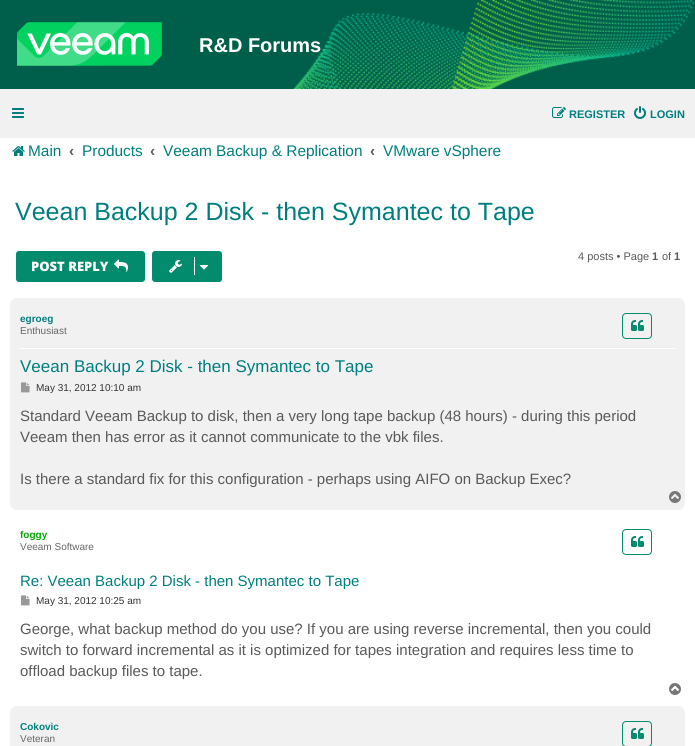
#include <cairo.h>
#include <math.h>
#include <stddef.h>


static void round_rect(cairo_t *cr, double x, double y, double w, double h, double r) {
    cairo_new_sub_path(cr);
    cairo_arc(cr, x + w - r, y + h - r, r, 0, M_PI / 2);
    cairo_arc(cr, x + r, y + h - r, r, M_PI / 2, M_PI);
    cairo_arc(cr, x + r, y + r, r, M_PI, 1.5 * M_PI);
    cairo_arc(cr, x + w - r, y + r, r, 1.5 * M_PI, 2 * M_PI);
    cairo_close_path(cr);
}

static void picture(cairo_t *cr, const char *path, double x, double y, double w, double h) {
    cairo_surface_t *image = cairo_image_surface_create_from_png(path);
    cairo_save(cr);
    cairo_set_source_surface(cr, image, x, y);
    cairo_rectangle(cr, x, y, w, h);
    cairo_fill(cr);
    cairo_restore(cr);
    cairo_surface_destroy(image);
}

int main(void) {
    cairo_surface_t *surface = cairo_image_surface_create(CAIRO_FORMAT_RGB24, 695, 746);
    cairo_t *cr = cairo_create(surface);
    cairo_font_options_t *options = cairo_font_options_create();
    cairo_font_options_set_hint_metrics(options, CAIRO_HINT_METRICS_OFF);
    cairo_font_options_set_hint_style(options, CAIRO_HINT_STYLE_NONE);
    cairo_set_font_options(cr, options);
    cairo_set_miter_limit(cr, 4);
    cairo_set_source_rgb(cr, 1, 1, 1);
    cairo_paint(cr);
    cairo_set_source_rgb(cr, 0, 0.373, 0.294);
    cairo_rectangle(cr, 0, 0, 695, 89);
    cairo_fill(cr);
    picture(cr, "img1.png", 293, 0, 402, 89);
    picture(cr, "img2.png", 17, 22, 145, 44);
    cairo_select_font_face(cr, "Liberation Sans", CAIRO_FONT_SLANT_NORMAL, CAIRO_FONT_WEIGHT_BOLD);
    cairo_set_font_size(cr, 20);
    cairo_set_source_rgb(cr, 1, 1, 1);
    cairo_move_to(cr, 199, 52);
    cairo_show_text(cr, "R&D Forums");
    cairo_set_source_rgb(cr, 0.945, 0.945, 0.945);
    cairo_rectangle(cr, 0, 89, 695, 49);
    cairo_fill(cr);
    picture(cr, "img3.png", 12, 108, 12, 10);
    picture(cr, "img4.png", 552, 107, 14, 11);
    cairo_set_font_size(cr, 11);
    cairo_set_source_rgb(cr, 0, 0.494, 0.494);
    cairo_move_to(cr, 569, 118);
    cairo_show_text(cr, "REGISTER");
    picture(cr, "img5.png", 634, 106, 12, 13);
    cairo_move_to(cr, 650, 118);
    cairo_show_text(cr, "LOGIN");
    picture(cr, "img6.png", 12, 146, 13, 10);
    cairo_select_font_face(cr, "Liberation Sans", CAIRO_FONT_SLANT_NORMAL, CAIRO_FONT_WEIGHT_NORMAL);
    cairo_set_font_size(cr, 15.4);
    cairo_move_to(cr, 28, 156);
    cairo_show_text(cr, "Main");
    cairo_select_font_face(cr, "Liberation Sans", CAIRO_FONT_SLANT_NORMAL, CAIRO_FONT_WEIGHT_BOLD);
    cairo_set_source_rgb(cr, 0.345, 0.349, 0.357);
    cairo_move_to(cr, 69, 156);
    cairo_show_text(cr, "‹");
    cairo_select_font_face(cr, "Liberation Sans", CAIRO_FONT_SLANT_NORMAL, CAIRO_FONT_WEIGHT_NORMAL);
    cairo_set_source_rgb(cr, 0, 0.494, 0.494);
    cairo_move_to(cr, 82, 156);
    cairo_show_text(cr, "Products");
    cairo_select_font_face(cr, "Liberation Sans", CAIRO_FONT_SLANT_NORMAL, CAIRO_FONT_WEIGHT_BOLD);
    cairo_set_source_rgb(cr, 0.345, 0.349, 0.357);
    cairo_move_to(cr, 150, 156);
    cairo_show_text(cr, "‹");
    cairo_select_font_face(cr, "Liberation Sans", CAIRO_FONT_SLANT_NORMAL, CAIRO_FONT_WEIGHT_NORMAL);
    cairo_set_source_rgb(cr, 0, 0.494, 0.494);
    cairo_move_to(cr, 163, 156);
    cairo_show_text(cr, "Veeam Backup & Replication");
    cairo_select_font_face(cr, "Liberation Sans", CAIRO_FONT_SLANT_NORMAL, CAIRO_FONT_WEIGHT_BOLD);
    cairo_set_source_rgb(cr, 0.345, 0.349, 0.357);
    cairo_move_to(cr, 370, 156);
    cairo_show_text(cr, "‹");
    cairo_select_font_face(cr, "Liberation Sans", CAIRO_FONT_SLANT_NORMAL, CAIRO_FONT_WEIGHT_NORMAL);
    cairo_set_source_rgb(cr, 0, 0.494, 0.494);
    cairo_move_to(cr, 383, 156);
    cairo_show_text(cr, "VMware vSphere");
    cairo_set_font_size(cr, 25);
    cairo_move_to(cr, 15, 220);
    cairo_show_text(cr, "Veean Backup 2 Disk - then Symantec to Tape");
    cairo_set_source_rgb(cr, 0.008, 0.545, 0.427);
    round_rect(cr, 151.5, 250.5, 71, 32, 3.5);
    cairo_fill_preserve(cr);
    cairo_set_source_rgb(cr, 1, 1, 1);
    cairo_set_line_width(cr, 1);
    cairo_stroke(cr);
    picture(cr, "img7.png", 169, 260, 13, 13);
    cairo_rectangle(cr, 194, 257, 1, 18);
    cairo_fill(cr);
    picture(cr, "img8.png", 200, 265, 8, 5);
    cairo_set_font_size(cr, 11);
    cairo_set_source_rgb(cr, 0.345, 0.349, 0.357);
    cairo_move_to(cr, 578, 260);
    cairo_show_text(cr, "4 posts • Page");
    cairo_select_font_face(cr, "Liberation Sans", CAIRO_FONT_SLANT_NORMAL, CAIRO_FONT_WEIGHT_BOLD);
    cairo_move_to(cr, 652, 260);
    cairo_show_text(cr, "1");
    cairo_select_font_face(cr, "Liberation Sans", CAIRO_FONT_SLANT_NORMAL, CAIRO_FONT_WEIGHT_NORMAL);
    cairo_move_to(cr, 662, 260);
    cairo_show_text(cr, "of");
    cairo_select_font_face(cr, "Liberation Sans", CAIRO_FONT_SLANT_NORMAL, CAIRO_FONT_WEIGHT_BOLD);
    cairo_move_to(cr, 674, 260);
    cairo_show_text(cr, "1");
    cairo_set_source_rgb(cr, 0.008, 0.545, 0.427);
    round_rect(cr, 15.5, 250.5, 130, 32, 3.5);
    cairo_fill_preserve(cr);
    cairo_set_source_rgb(cr, 1, 1, 1);
    cairo_stroke(cr);
    cairo_select_font_face(cr, "Open Sans ExtraBold", CAIRO_FONT_SLANT_NORMAL, CAIRO_FONT_WEIGHT_NORMAL);
    cairo_set_font_size(cr, 13);
    cairo_move_to(cr, 31, 271);
    cairo_show_text(cr, "POST REPLY");
    picture(cr, "img9.png", 114, 259, 14, 13);
    cairo_set_source_rgb(cr, 0.945, 0.945, 0.945);
    round_rect(cr, 10, 298, 675, 212, 7);
    cairo_fill(cr);
    cairo_set_source_rgb(cr, 1, 1, 1);
    cairo_rectangle(cr, 20, 348, 655, 1);
    cairo_fill(cr);
    cairo_select_font_face(cr, "Liberation Sans", CAIRO_FONT_SLANT_NORMAL, CAIRO_FONT_WEIGHT_BOLD);
    cairo_set_font_size(cr, 10);
    cairo_set_source_rgb(cr, 0, 0.494, 0.494);
    cairo_move_to(cr, 20, 322);
    cairo_show_text(cr, "egroeg");
    cairo_select_font_face(cr, "Liberation Sans", CAIRO_FONT_SLANT_NORMAL, CAIRO_FONT_WEIGHT_NORMAL);
    cairo_set_source_rgb(cr, 0.4, 0.4, 0.4);
    cairo_move_to(cr, 20, 334);
    cairo_show_text(cr, "Enthusiast");
    round_rect(cr, 622.5, 313.5, 29, 25, 3.5);
    cairo_set_source_rgb(cr, 0.008, 0.545, 0.427);
    cairo_stroke(cr);
    picture(cr, "img10.png", 631, 320, 13, 11);
    cairo_set_font_size(cr, 17);
    cairo_set_source_rgb(cr, 0, 0.494, 0.494);
    cairo_move_to(cr, 20, 372);
    cairo_show_text(cr, "Veean Backup 2 Disk - then Symantec to Tape");
    picture(cr, "img11.png", 21, 382, 9, 11);
    cairo_set_font_size(cr, 10);
    cairo_set_source_rgb(cr, 0.2, 0.2, 0.2);
    cairo_move_to(cr, 36, 391);
    cairo_show_text(cr, "May 31, 2012 10:10 am");
    cairo_set_font_size(cr, 15);
    cairo_set_source_rgb(cr, 0.345, 0.349, 0.357);
    cairo_move_to(cr, 20, 421);
    cairo_show_text(cr, "Standard Veeam Backup to disk, then a very long tape backup (48 hours) - during this period");
    cairo_move_to(cr, 20, 442);
    cairo_show_text(cr, "Veeam then has error as it cannot communicate to the vbk files.");
    cairo_move_to(cr, 20, 484);
    cairo_show_text(cr, "Is there a standard fix for this configuration - perhaps using AIFO on Backup Exec?");
    picture(cr, "img12.png", 669, 491, 12, 12);
    cairo_select_font_face(cr, "Liberation Sans", CAIRO_FONT_SLANT_NORMAL, CAIRO_FONT_WEIGHT_BOLD);
    cairo_set_font_size(cr, 10);
    cairo_set_source_rgb(cr, 0, 0.667, 0);
    cairo_move_to(cr, 20, 538);
    cairo_show_text(cr, "foggy");
    cairo_select_font_face(cr, "Liberation Sans", CAIRO_FONT_SLANT_NORMAL, CAIRO_FONT_WEIGHT_NORMAL);
    cairo_set_source_rgb(cr, 0.4, 0.4, 0.4);
    cairo_move_to(cr, 20, 550);
    cairo_show_text(cr, "Veeam Software");
    round_rect(cr, 622.5, 529.5, 29, 25, 3.5);
    cairo_set_source_rgb(cr, 0.008, 0.545, 0.427);
    cairo_stroke(cr);
    picture(cr, "img13.png", 631, 536, 13, 11);
    cairo_set_font_size(cr, 15);
    cairo_set_source_rgb(cr, 0, 0.494, 0.494);
    cairo_move_to(cr, 20, 586);
    cairo_show_text(cr, "Re: Veean Backup 2 Disk - then Symantec to Tape");
    picture(cr, "img14.png", 21, 595, 9, 11);
    cairo_set_font_size(cr, 10);
    cairo_set_source_rgb(cr, 0.2, 0.2, 0.2);
    cairo_move_to(cr, 36, 604);
    cairo_show_text(cr, "May 31, 2012 10:25 am");
    cairo_set_font_size(cr, 15);
    cairo_set_source_rgb(cr, 0.345, 0.349, 0.357);
    cairo_move_to(cr, 20, 634);
    cairo_show_text(cr, "George, what backup method do you use? If you are using reverse incremental, then you could");
    cairo_move_to(cr, 20, 655);
    cairo_show_text(cr, "switch to forward incremental as it is optimized for tapes integration and requires less time to");
    cairo_move_to(cr, 20, 676);
    cairo_show_text(cr, "offload backup files to tape.");
    picture(cr, "img15.png", 669, 683, 12, 12);
    cairo_set_source_rgb(cr, 0.945, 0.945, 0.945);
    round_rect(cr, 10, 706, 675, 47, 7);
    cairo_fill(cr);
    cairo_select_font_face(cr, "Liberation Sans", CAIRO_FONT_SLANT_NORMAL, CAIRO_FONT_WEIGHT_BOLD);
    cairo_set_font_size(cr, 10);
    cairo_set_source_rgb(cr, 0, 0.494, 0.494);
    cairo_move_to(cr, 20, 730);
    cairo_show_text(cr, "Cokovic");
    cairo_select_font_face(cr, "Liberation Sans", CAIRO_FONT_SLANT_NORMAL, CAIRO_FONT_WEIGHT_NORMAL);
    cairo_set_source_rgb(cr, 0.4, 0.4, 0.4);
    cairo_move_to(cr, 20, 742);
    cairo_show_text(cr, "Veteran");
    round_rect(cr, 622.5, 721.5, 29, 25, 3.5);
    cairo_set_source_rgb(cr, 0.008, 0.545, 0.427);
    cairo_stroke(cr);
    picture(cr, "img10.png", 631, 728, 13, 11);
    cairo_surface_write_to_png(surface, "page.png");
    cairo_font_options_destroy(options);
    cairo_destroy(cr);
    cairo_surface_destroy(surface);
    return 0;
}
